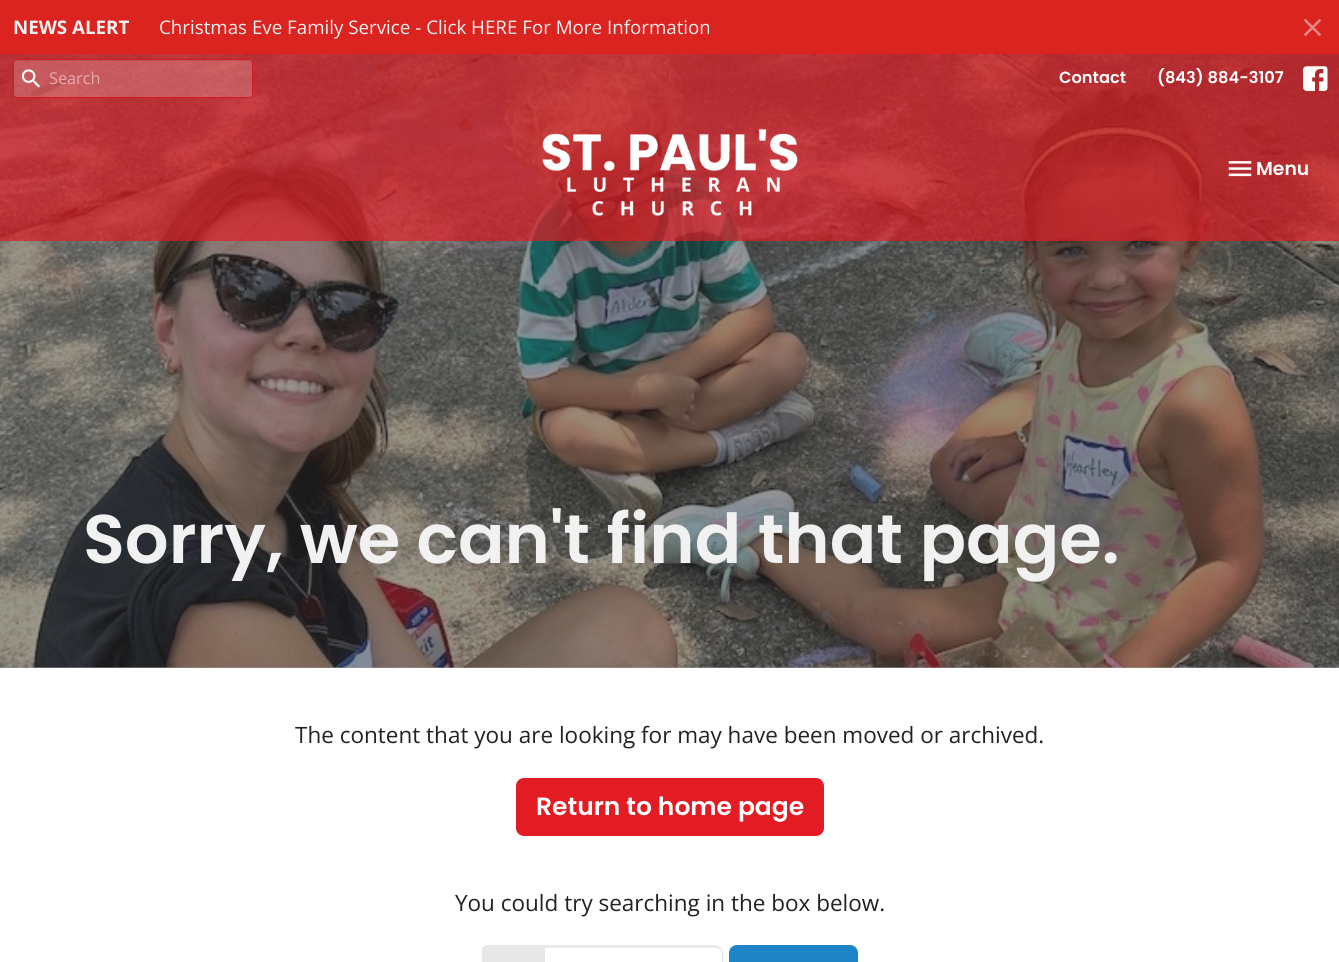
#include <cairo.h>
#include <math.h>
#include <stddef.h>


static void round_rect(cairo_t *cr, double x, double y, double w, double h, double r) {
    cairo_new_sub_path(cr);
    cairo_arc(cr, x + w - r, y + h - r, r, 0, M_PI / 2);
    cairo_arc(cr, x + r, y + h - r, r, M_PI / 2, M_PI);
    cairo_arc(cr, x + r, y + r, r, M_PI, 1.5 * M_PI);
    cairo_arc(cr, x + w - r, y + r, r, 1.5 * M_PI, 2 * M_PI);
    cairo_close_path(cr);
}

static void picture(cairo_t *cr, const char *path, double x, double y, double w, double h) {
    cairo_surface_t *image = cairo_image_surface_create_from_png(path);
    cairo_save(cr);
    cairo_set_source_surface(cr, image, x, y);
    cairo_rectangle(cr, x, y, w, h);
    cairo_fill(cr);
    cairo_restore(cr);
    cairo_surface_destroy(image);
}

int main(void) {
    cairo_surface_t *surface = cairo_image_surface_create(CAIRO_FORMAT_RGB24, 1339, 962);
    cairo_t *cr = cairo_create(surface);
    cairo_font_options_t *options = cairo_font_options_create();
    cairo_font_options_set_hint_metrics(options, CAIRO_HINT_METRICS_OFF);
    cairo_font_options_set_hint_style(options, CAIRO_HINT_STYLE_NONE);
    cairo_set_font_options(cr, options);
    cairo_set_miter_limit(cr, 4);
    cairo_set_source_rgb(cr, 1, 1, 1);
    cairo_paint(cr);
    cairo_set_source_rgb(cr, 0.6, 0.6, 0.6);
    cairo_rectangle(cr, 0, 667, 1339, 1);
    cairo_fill(cr);
    cairo_set_source_rgb(cr, 0.859, 0.137, 0.122);
    cairo_rectangle(cr, 0, 0, 1339, 54);
    cairo_fill(cr);
    cairo_select_font_face(cr, "Open Sans", CAIRO_FONT_SLANT_NORMAL, CAIRO_FONT_WEIGHT_BOLD);
    cairo_set_font_size(cr, 18.75);
    cairo_set_source_rgb(cr, 0.945, 0.945, 0.945);
    cairo_move_to(cr, 13, 34);
    cairo_show_text(cr, "NEWS ALERT");
    cairo_select_font_face(cr, "Open Sans", CAIRO_FONT_SLANT_NORMAL, CAIRO_FONT_WEIGHT_NORMAL);
    cairo_move_to(cr, 159, 34);
    cairo_show_text(cr, "Christmas Eve Family Service - Click HERE For More Information");
    picture(cr, "img1.png", 1303, 18, 19, 19);
    picture(cr, "img6.png", 0, 54, 1339, 614);
    cairo_set_source_rgba(cr, 0.89, 0.106, 0.137, 0.68);
    cairo_rectangle(cr, 0, 53, 1339, 51);
    cairo_fill(cr);
    cairo_set_source_rgba(cr, 1, 1, 1, 0.2);
    round_rect(cr, 13, 59, 240, 39, 4);
    cairo_fill(cr);
    cairo_set_source_rgba(cr, 0, 0, 0, 0.07);
    cairo_new_path(cr);
    cairo_move_to(cr, 16, 61);
    cairo_line_to(cr, 249, 61);
    cairo_curve_to(cr, 250, 61, 251, 62, 251, 64);
    cairo_curve_to(cr, 251, 62, 251, 60, 248, 60);
    cairo_line_to(cr, 16, 60);
    cairo_curve_to(cr, 14, 60, 14, 62, 14, 64);
    cairo_curve_to(cr, 14, 62, 15, 61, 16, 61);
    cairo_close_path(cr);
    cairo_fill(cr);
    round_rect(cr, 13.5, 59.5, 239, 38, 3.5);
    cairo_set_source_rgb(cr, 0.835, 0.098, 0.129);
    cairo_set_line_width(cr, 1);
    cairo_stroke(cr);
    picture(cr, "img2.png", 21, 69, 19, 19);
    cairo_set_font_size(cr, 16.25);
    cairo_set_source_rgb(cr, 0.89, 0.678, 0.682);
    cairo_move_to(cr, 49, 84);
    cairo_show_text(cr, "Search");
    cairo_select_font_face(cr, "Poppins SemiBold", CAIRO_FONT_SLANT_NORMAL, CAIRO_FONT_WEIGHT_NORMAL);
    cairo_set_source_rgb(cr, 1, 1, 1);
    cairo_move_to(cr, 1059, 83);
    cairo_show_text(cr, "Contact");
    cairo_move_to(cr, 1157, 83);
    cairo_show_text(cr, "(843) 884-3107");
    picture(cr, "img3.png", 1303, 66, 25, 25);
    cairo_set_source_rgba(cr, 0.89, 0.106, 0.137, 0.68);
    cairo_rectangle(cr, 0, 104, 1339, 137);
    cairo_fill(cr);
    picture(cr, "img4.png", 542, 128, 256, 88);
    picture(cr, "img5.png", 1228, 161, 24, 16);
    cairo_set_font_size(cr, 18.75);
    cairo_set_source_rgb(cr, 1, 1, 1);
    cairo_move_to(cr, 1256, 175);
    cairo_show_text(cr, "Menu");
    cairo_set_font_size(cr, 68.75);
    cairo_set_source_rgb(cr, 0.945, 0.945, 0.945);
    cairo_move_to(cr, 83, 563);
    cairo_show_text(cr, "Sorry, we can't find that page.");
    cairo_select_font_face(cr, "Open Sans", CAIRO_FONT_SLANT_NORMAL, CAIRO_FONT_WEIGHT_NORMAL);
    cairo_set_font_size(cr, 22.5);
    cairo_set_source_rgb(cr, 0.133, 0.133, 0.133);
    cairo_move_to(cr, 295, 743);
    cairo_show_text(cr, "The content that you are looking for may have been moved or archived.");
    cairo_set_source_rgb(cr, 0.89, 0.106, 0.137);
    round_rect(cr, 516, 778, 308, 58, 8);
    cairo_fill(cr);
    cairo_select_font_face(cr, "Poppins SemiBold", CAIRO_FONT_SLANT_NORMAL, CAIRO_FONT_WEIGHT_NORMAL);
    cairo_set_font_size(cr, 25);
    cairo_set_source_rgb(cr, 1, 1, 1);
    cairo_move_to(cr, 536, 815);
    cairo_show_text(cr, "Return to home page");
    cairo_select_font_face(cr, "Open Sans", CAIRO_FONT_SLANT_NORMAL, CAIRO_FONT_WEIGHT_NORMAL);
    cairo_set_font_size(cr, 22.5);
    cairo_set_source_rgb(cr, 0.133, 0.133, 0.133);
    cairo_move_to(cr, 455, 911);
    cairo_show_text(cr, "You could try searching in the box below.");
    cairo_set_source_rgb(cr, 0.91, 0.91, 0.91);
    cairo_new_path(cr);
    cairo_move_to(cr, 488, 945);
    cairo_line_to(cr, 544, 945);
    cairo_line_to(cr, 544, 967);
    cairo_line_to(cr, 488, 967);
    cairo_curve_to(cr, 485, 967, 483, 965, 483, 962);
    cairo_line_to(cr, 483, 950);
    cairo_curve_to(cr, 483, 947, 485, 945, 488, 945);
    cairo_close_path(cr);
    cairo_fill(cr);
    cairo_set_source_rgb(cr, 0.902, 0.902, 0.902);
    cairo_set_fill_rule(cr, CAIRO_FILL_RULE_EVEN_ODD);
    cairo_new_path(cr);
    cairo_move_to(cr, 488, 945);
    cairo_line_to(cr, 544, 945);
    cairo_line_to(cr, 544, 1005);
    cairo_line_to(cr, 488, 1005);
    cairo_curve_to(cr, 485, 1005, 482, 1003, 482, 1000);
    cairo_line_to(cr, 482, 950);
    cairo_curve_to(cr, 482, 947, 485, 945, 488, 945);
    cairo_close_path(cr);
    cairo_move_to(cr, 488, 946);
    cairo_line_to(cr, 544, 946);
    cairo_line_to(cr, 544, 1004);
    cairo_line_to(cr, 488, 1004);
    cairo_curve_to(cr, 485, 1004, 484, 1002, 484, 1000);
    cairo_line_to(cr, 484, 950);
    cairo_curve_to(cr, 484, 948, 485, 946, 488, 946);
    cairo_close_path(cr);
    cairo_fill(cr);
    cairo_set_source_rgb(cr, 0.925, 0.925, 0.925);
    cairo_set_fill_rule(cr, CAIRO_FILL_RULE_WINDING);
    cairo_new_path(cr);
    cairo_move_to(cr, 545, 948);
    cairo_line_to(cr, 715, 948);
    cairo_curve_to(cr, 718, 948, 721, 950, 721, 954);
    cairo_line_to(cr, 721, 952);
    cairo_curve_to(cr, 721, 949, 718, 946, 715, 946);
    cairo_line_to(cr, 545, 946);
    cairo_close_path(cr);
    cairo_fill(cr);
    cairo_new_path(cr);
    cairo_move_to(cr, 544.5, 945.5);
    cairo_line_to(cr, 715, 945.5);
    cairo_curve_to(cr, 719, 945.5, 722.5, 949, 722.5, 953);
    cairo_line_to(cr, 722.5, 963);
    cairo_curve_to(cr, 722.5, 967, 719, 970.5, 715, 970.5);
    cairo_line_to(cr, 544.5, 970.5);
    cairo_close_path(cr);
    cairo_set_source_rgb(cr, 0.902, 0.902, 0.902);
    cairo_stroke(cr);
    cairo_set_source_rgb(cr, 0.122, 0.522, 0.776);
    round_rect(cr, 729, 945, 129, 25, 8);
    cairo_fill(cr);
    cairo_surface_write_to_png(surface, "page.png");
    cairo_font_options_destroy(options);
    cairo_destroy(cr);
    cairo_surface_destroy(surface);
    return 0;
}
